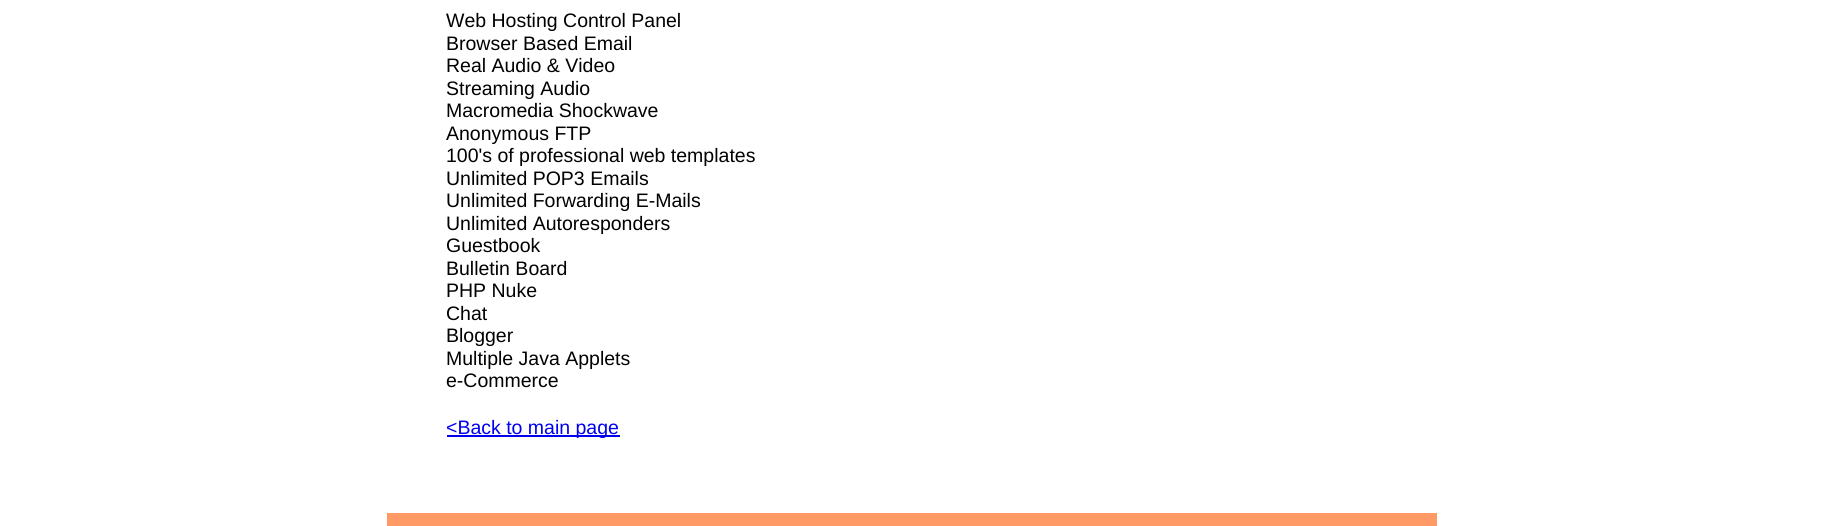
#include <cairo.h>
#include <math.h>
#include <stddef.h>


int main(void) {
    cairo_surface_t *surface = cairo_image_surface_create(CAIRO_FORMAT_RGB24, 1822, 526);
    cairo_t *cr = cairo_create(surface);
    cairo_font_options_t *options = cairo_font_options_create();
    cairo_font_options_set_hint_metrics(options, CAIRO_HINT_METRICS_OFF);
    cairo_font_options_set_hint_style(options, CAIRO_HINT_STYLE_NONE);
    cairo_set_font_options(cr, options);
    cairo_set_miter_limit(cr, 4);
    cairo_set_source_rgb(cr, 1, 1, 1);
    cairo_paint(cr);
    cairo_select_font_face(cr, "Liberation Sans", CAIRO_FONT_SLANT_NORMAL, CAIRO_FONT_WEIGHT_NORMAL);
    cairo_set_font_size(cr, 19.5);
    cairo_set_source_rgb(cr, 0, 0, 0);
    cairo_move_to(cr, 446, 27);
    cairo_show_text(cr, "Web Hosting Control Panel");
    cairo_move_to(cr, 446, 50);
    cairo_show_text(cr, "Browser Based Email");
    cairo_move_to(cr, 446, 72);
    cairo_show_text(cr, "Real Audio & Video");
    cairo_move_to(cr, 446, 95);
    cairo_show_text(cr, "Streaming Audio");
    cairo_move_to(cr, 446, 117);
    cairo_show_text(cr, "Macromedia Shockwave");
    cairo_move_to(cr, 446, 140);
    cairo_show_text(cr, "Anonymous FTP");
    cairo_move_to(cr, 446, 162);
    cairo_show_text(cr, "100's of professional web templates");
    cairo_move_to(cr, 446, 185);
    cairo_show_text(cr, "Unlimited POP3 Emails");
    cairo_move_to(cr, 446, 207);
    cairo_show_text(cr, "Unlimited Forwarding E-Mails");
    cairo_move_to(cr, 446, 230);
    cairo_show_text(cr, "Unlimited Autoresponders");
    cairo_move_to(cr, 446, 252);
    cairo_show_text(cr, "Guestbook");
    cairo_move_to(cr, 446, 275);
    cairo_show_text(cr, "Bulletin Board");
    cairo_move_to(cr, 446, 297);
    cairo_show_text(cr, "PHP Nuke");
    cairo_move_to(cr, 446, 320);
    cairo_show_text(cr, "Chat");
    cairo_move_to(cr, 446, 342);
    cairo_show_text(cr, "Blogger");
    cairo_move_to(cr, 446, 365);
    cairo_show_text(cr, "Multiple Java Applets");
    cairo_move_to(cr, 446, 387);
    cairo_show_text(cr, "e-Commerce");
    cairo_set_source_rgb(cr, 0, 0, 0.933);
    cairo_rectangle(cr, 447, 435, 173, 2);
    cairo_fill(cr);
    cairo_move_to(cr, 446, 434);
    cairo_show_text(cr, "<Back to main page");
    cairo_rectangle(cr, 388, 514, 1048, 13);
    cairo_set_source_rgb(cr, 1, 0.6, 0.4);
    cairo_stroke(cr);
    cairo_rectangle(cr, 389, 515, 1046, 11);
    cairo_fill(cr);
    cairo_surface_write_to_png(surface, "page.png");
    cairo_font_options_destroy(options);
    cairo_destroy(cr);
    cairo_surface_destroy(surface);
    return 0;
}
